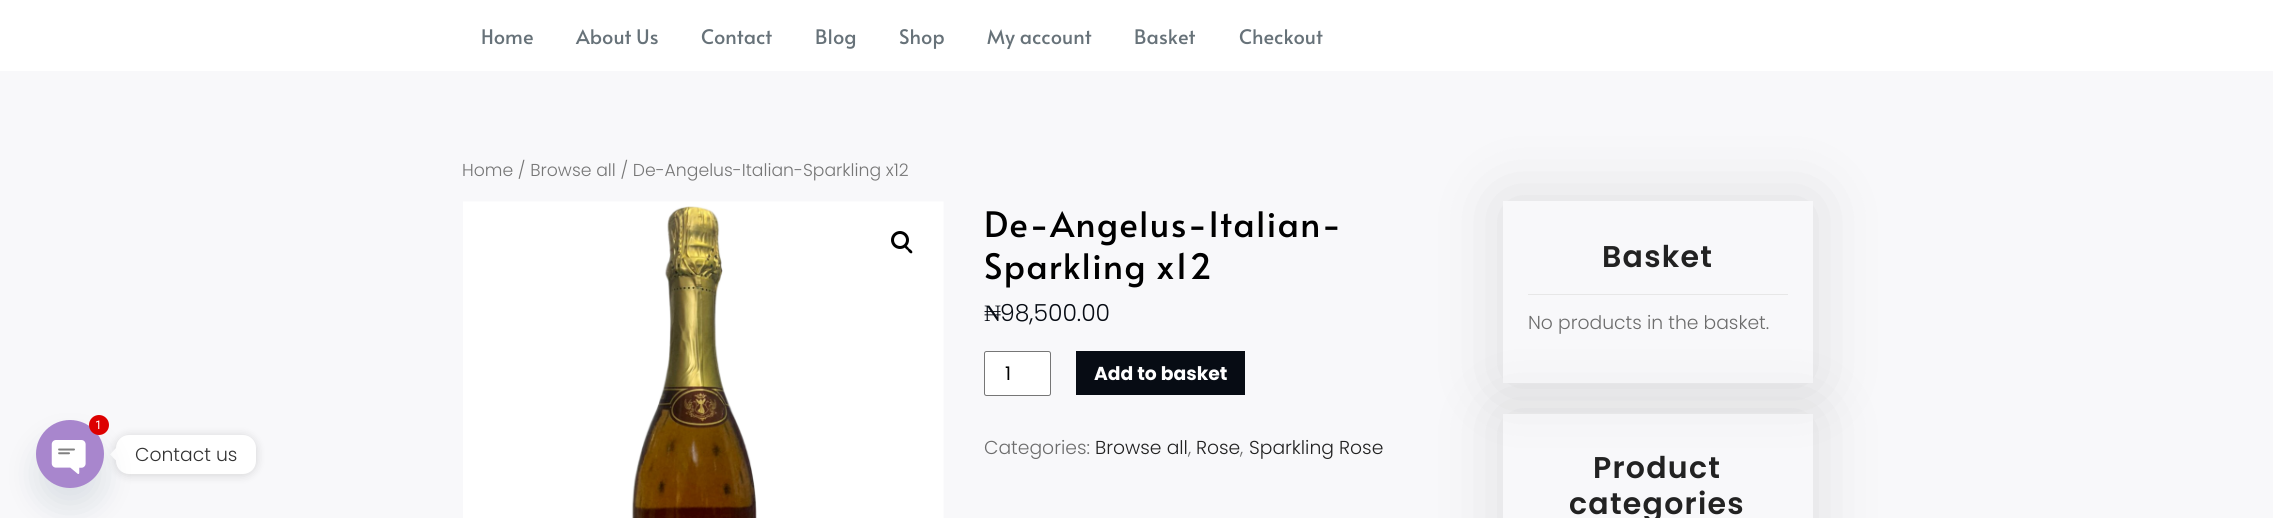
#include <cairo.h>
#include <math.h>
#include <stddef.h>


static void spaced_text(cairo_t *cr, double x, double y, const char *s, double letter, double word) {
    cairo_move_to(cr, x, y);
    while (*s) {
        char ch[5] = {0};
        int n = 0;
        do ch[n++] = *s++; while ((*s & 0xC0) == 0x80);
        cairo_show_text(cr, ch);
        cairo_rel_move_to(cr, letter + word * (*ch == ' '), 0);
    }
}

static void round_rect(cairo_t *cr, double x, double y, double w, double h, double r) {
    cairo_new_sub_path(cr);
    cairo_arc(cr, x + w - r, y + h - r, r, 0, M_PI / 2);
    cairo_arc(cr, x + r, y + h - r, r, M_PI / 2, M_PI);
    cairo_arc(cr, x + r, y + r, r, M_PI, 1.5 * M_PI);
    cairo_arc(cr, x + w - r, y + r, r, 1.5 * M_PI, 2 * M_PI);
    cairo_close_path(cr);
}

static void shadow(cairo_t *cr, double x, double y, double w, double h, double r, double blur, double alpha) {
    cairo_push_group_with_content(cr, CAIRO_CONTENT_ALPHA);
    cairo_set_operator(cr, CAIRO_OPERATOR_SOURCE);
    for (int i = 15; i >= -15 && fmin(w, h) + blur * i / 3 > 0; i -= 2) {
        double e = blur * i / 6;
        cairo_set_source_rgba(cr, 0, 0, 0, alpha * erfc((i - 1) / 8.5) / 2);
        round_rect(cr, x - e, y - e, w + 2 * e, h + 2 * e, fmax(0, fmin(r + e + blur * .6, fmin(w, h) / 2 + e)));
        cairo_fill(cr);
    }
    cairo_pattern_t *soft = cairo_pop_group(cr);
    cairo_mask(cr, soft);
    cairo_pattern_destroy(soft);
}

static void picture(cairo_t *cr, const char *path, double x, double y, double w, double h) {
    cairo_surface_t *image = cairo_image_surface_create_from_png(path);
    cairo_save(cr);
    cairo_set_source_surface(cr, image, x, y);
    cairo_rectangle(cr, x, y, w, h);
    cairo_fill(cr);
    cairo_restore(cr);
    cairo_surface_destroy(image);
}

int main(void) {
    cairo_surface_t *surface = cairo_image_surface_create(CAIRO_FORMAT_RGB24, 2273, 518);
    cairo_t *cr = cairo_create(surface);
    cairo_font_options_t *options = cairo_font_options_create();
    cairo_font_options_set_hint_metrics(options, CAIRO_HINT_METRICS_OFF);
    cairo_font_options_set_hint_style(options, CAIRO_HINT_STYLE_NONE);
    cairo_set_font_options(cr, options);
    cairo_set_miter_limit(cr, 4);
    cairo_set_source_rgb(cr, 0.969, 0.969, 0.98);
    cairo_paint(cr);
    cairo_set_source_rgb(cr, 1, 1, 1);
    cairo_rectangle(cr, 0, 0, 2273, 71);
    cairo_fill(cr);
    cairo_select_font_face(cr, "Alata", CAIRO_FONT_SLANT_NORMAL, CAIRO_FONT_WEIGHT_NORMAL);
    cairo_set_font_size(cr, 20);
    cairo_set_source_rgb(cr, 0.404, 0.447, 0.475);
    cairo_move_to(cr, 481, 44);
    cairo_show_text(cr, "Home");
    cairo_move_to(cr, 576, 44);
    cairo_show_text(cr, "About Us");
    cairo_move_to(cr, 701, 44);
    cairo_show_text(cr, "Contact");
    cairo_move_to(cr, 815, 44);
    cairo_show_text(cr, "Blog");
    cairo_move_to(cr, 899, 44);
    cairo_show_text(cr, "Shop");
    cairo_move_to(cr, 987, 44);
    cairo_show_text(cr, "My account");
    cairo_move_to(cr, 1134, 44);
    cairo_show_text(cr, "Basket");
    cairo_move_to(cr, 1239, 44);
    cairo_show_text(cr, "Checkout");
    cairo_set_source_rgb(cr, 0, 0, 0);
    shadow(cr, 116, 436, 140, 39, 13, 5, 0.15);
    cairo_set_source_rgb(cr, 1, 1, 1);
    round_rect(cr, 116, 435, 140, 39, 13);
    cairo_fill(cr);
    cairo_new_path(cr);
    cairo_move_to(cr, 116, 448);
    cairo_line_to(cr, 116, 460.5);
    cairo_line_to(cr, 110, 454.5);
    cairo_close_path(cr);
    cairo_fill(cr);
    cairo_set_source_rgb(cr, 0.286, 0.408, 0.494);
    shadow(cr, 36, 440, 68, 68, 34, 15, 0.16);
    picture(cr, "img1.png", 36, 420, 68, 68);
    cairo_set_source_rgb(cr, 0.867, 0, 0);
    cairo_arc(cr, 99, 425, 10, 0, 2 * M_PI);
    cairo_fill(cr);
    cairo_select_font_face(cr, "Roboto", CAIRO_FONT_SLANT_NORMAL, CAIRO_FONT_WEIGHT_NORMAL);
    cairo_set_font_size(cr, 12);
    cairo_set_source_rgb(cr, 1, 1, 1);
    cairo_move_to(cr, 95, 429);
    cairo_show_text(cr, "1");
    cairo_select_font_face(cr, "Poppins Light", CAIRO_FONT_SLANT_NORMAL, CAIRO_FONT_WEIGHT_NORMAL);
    cairo_set_font_size(cr, 18.75);
    cairo_set_source_rgb(cr, 0.2, 0.2, 0.2);
    cairo_move_to(cr, 135, 461);
    cairo_show_text(cr, "Contact us");
    cairo_set_font_size(cr, 17.25);
    cairo_set_source_rgb(cr, 0.463, 0.463, 0.463);
    cairo_move_to(cr, 462, 176);
    cairo_show_text(cr, "Home / Browse all / De-Angelus-Italian-Sparkling x12");
    picture(cr, "img2.png", 463, 201, 481, 317);
    cairo_arc(cr, 900, 240, 7.5, 0, 2 * M_PI);
    cairo_set_source_rgb(cr, 0, 0, 0);
    cairo_set_line_width(cr, 3);
    cairo_stroke(cr);
    cairo_new_path(cr);
    cairo_move_to(cr, 905, 246);
    cairo_curve_to(cr, 906, 244.5, 908.5, 247.5, 909, 248.5);
    cairo_curve_to(cr, 910, 249, 913.5, 251.5, 912, 253);
    cairo_curve_to(cr, 910.5, 254.5, 908, 251, 907.5, 250);
    cairo_curve_to(cr, 906.5, 249.5, 903.5, 247, 905, 246);
    cairo_close_path(cr);
    cairo_fill(cr);
    cairo_select_font_face(cr, "Alata", CAIRO_FONT_SLANT_NORMAL, CAIRO_FONT_WEIGHT_NORMAL);
    cairo_set_font_size(cr, 35);
    spaced_text(cr, 984, 237, "De-Angelus-Italian-", 1.25, 0);
    spaced_text(cr, 984, 279, "Sparkling x12", 1.25, 0);
    cairo_select_font_face(cr, "Liberation Serif", CAIRO_FONT_SLANT_NORMAL, CAIRO_FONT_WEIGHT_NORMAL);
    cairo_set_font_size(cr, 23.5);
    cairo_set_source_rgb(cr, 0.031, 0.047, 0.082);
    cairo_move_to(cr, 984, 321);
    cairo_show_text(cr, "₦");
    cairo_select_font_face(cr, "Poppins Light", CAIRO_FONT_SLANT_NORMAL, CAIRO_FONT_WEIGHT_NORMAL);
    cairo_move_to(cr, 1000, 321);
    cairo_show_text(cr, "98,500.00");
    cairo_set_source_rgb(cr, 1, 1, 1);
    round_rect(cr, 984.5, 351.5, 66, 44, 2);
    cairo_fill_preserve(cr);
    cairo_set_source_rgb(cr, 0.463, 0.463, 0.463);
    cairo_set_line_width(cr, 1);
    cairo_stroke(cr);
    cairo_select_font_face(cr, "Poppins", CAIRO_FONT_SLANT_NORMAL, CAIRO_FONT_WEIGHT_NORMAL);
    cairo_set_font_size(cr, 18.75);
    cairo_set_source_rgb(cr, 0, 0, 0);
    cairo_move_to(cr, 1005, 380);
    cairo_show_text(cr, "1");
    cairo_set_source_rgb(cr, 0.031, 0.047, 0.082);
    cairo_rectangle(cr, 1076, 351, 169, 44);
    cairo_fill(cr);
    cairo_select_font_face(cr, "Poppins", CAIRO_FONT_SLANT_NORMAL, CAIRO_FONT_WEIGHT_BOLD);
    cairo_set_source_rgb(cr, 1, 1, 1);
    cairo_move_to(cr, 1094, 380);
    cairo_show_text(cr, "Add to basket");
    cairo_select_font_face(cr, "Poppins Light", CAIRO_FONT_SLANT_NORMAL, CAIRO_FONT_WEIGHT_NORMAL);
    cairo_set_source_rgb(cr, 0.424, 0.424, 0.424);
    cairo_move_to(cr, 984, 454);
    cairo_show_text(cr, "Categories:");
    cairo_set_source_rgb(cr, 0.133, 0.133, 0.133);
    cairo_move_to(cr, 1095, 454);
    cairo_show_text(cr, "Browse all");
    cairo_set_source_rgb(cr, 0.424, 0.424, 0.424);
    cairo_move_to(cr, 1188, 454);
    cairo_show_text(cr, ",");
    cairo_set_source_rgb(cr, 0.133, 0.133, 0.133);
    cairo_move_to(cr, 1196, 454);
    cairo_show_text(cr, "Rose");
    cairo_set_source_rgb(cr, 0.424, 0.424, 0.424);
    cairo_move_to(cr, 1240, 454);
    cairo_show_text(cr, ",");
    cairo_set_source_rgb(cr, 0.133, 0.133, 0.133);
    cairo_move_to(cr, 1249, 454);
    cairo_show_text(cr, "Sparkling Rose");
    cairo_save(cr);
    cairo_set_fill_rule(cr, CAIRO_FILL_RULE_EVEN_ODD);
    cairo_new_path(cr);
    cairo_move_to(cr, 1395, 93);
    cairo_line_to(cr, 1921, 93);
    cairo_line_to(cr, 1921, 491);
    cairo_line_to(cr, 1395, 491);
    cairo_close_path(cr);
    cairo_move_to(cr, 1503, 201);
    cairo_line_to(cr, 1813, 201);
    cairo_line_to(cr, 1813, 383);
    cairo_line_to(cr, 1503, 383);
    cairo_close_path(cr);
    cairo_clip(cr);
    cairo_set_source_rgb(cr, 0, 0, 0);
    shadow(cr, 1503, 201, 310, 182, 0, 35.5, 0.11);
    cairo_restore(cr);
    cairo_set_source_rgb(cr, 0.906, 0.906, 0.906);
    cairo_rectangle(cr, 1528, 294, 260, 1);
    cairo_fill(cr);
    cairo_select_font_face(cr, "Poppins SemiBold", CAIRO_FONT_SLANT_NORMAL, CAIRO_FONT_WEIGHT_NORMAL);
    cairo_set_font_size(cr, 30);
    cairo_set_source_rgb(cr, 0.133, 0.133, 0.133);
    spaced_text(cr, 1602, 267, "Basket", 1.25, 0);
    cairo_save(cr);
    cairo_set_fill_rule(cr, CAIRO_FILL_RULE_EVEN_ODD);
    cairo_new_path(cr);
    cairo_move_to(cr, 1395, 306);
    cairo_line_to(cr, 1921, 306);
    cairo_line_to(cr, 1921, 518);
    cairo_line_to(cr, 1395, 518);
    cairo_close_path(cr);
    cairo_move_to(cr, 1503, 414);
    cairo_line_to(cr, 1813, 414);
    cairo_line_to(cr, 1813, 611);
    cairo_line_to(cr, 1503, 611);
    cairo_close_path(cr);
    cairo_clip(cr);
    cairo_set_source_rgb(cr, 0, 0, 0);
    shadow(cr, 1503, 414, 310, 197, 0, 35.5, 0.11);
    cairo_restore(cr);
    cairo_select_font_face(cr, "Poppins Light", CAIRO_FONT_SLANT_NORMAL, CAIRO_FONT_WEIGHT_NORMAL);
    cairo_set_font_size(cr, 18.75);
    cairo_set_source_rgb(cr, 0.424, 0.424, 0.424);
    cairo_move_to(cr, 1528, 329);
    cairo_show_text(cr, "No products in the basket.");
    cairo_select_font_face(cr, "Poppins SemiBold", CAIRO_FONT_SLANT_NORMAL, CAIRO_FONT_WEIGHT_NORMAL);
    cairo_set_font_size(cr, 30);
    cairo_set_source_rgb(cr, 0.133, 0.133, 0.133);
    spaced_text(cr, 1593, 478, "Product", 1.25, 0);
    spaced_text(cr, 1569, 514, "categories", 1.25, 0);
    cairo_surface_write_to_png(surface, "page.png");
    cairo_font_options_destroy(options);
    cairo_destroy(cr);
    cairo_surface_destroy(surface);
    return 0;
}
